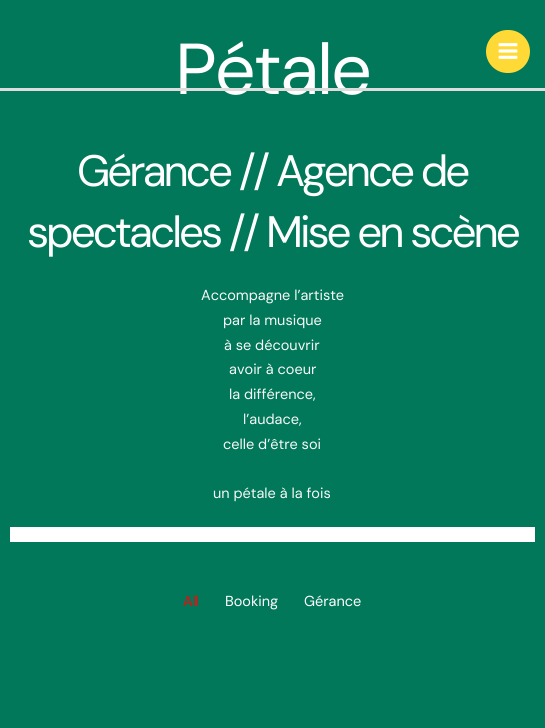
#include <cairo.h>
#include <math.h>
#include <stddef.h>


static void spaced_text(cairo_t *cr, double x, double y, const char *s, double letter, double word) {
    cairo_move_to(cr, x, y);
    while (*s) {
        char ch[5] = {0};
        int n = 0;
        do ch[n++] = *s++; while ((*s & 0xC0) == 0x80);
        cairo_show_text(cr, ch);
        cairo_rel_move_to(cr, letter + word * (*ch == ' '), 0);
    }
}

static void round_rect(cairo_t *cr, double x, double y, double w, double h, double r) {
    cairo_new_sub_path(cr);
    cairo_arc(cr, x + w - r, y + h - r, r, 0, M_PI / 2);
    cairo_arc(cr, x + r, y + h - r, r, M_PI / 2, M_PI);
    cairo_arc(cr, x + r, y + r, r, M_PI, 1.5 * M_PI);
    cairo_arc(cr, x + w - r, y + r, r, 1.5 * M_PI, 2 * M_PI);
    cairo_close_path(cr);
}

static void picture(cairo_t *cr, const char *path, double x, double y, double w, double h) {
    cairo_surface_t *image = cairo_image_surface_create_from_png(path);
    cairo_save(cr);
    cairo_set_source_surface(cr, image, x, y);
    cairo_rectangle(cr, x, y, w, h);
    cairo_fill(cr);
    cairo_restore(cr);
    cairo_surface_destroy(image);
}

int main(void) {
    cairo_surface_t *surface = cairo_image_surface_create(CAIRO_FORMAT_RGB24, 545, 728);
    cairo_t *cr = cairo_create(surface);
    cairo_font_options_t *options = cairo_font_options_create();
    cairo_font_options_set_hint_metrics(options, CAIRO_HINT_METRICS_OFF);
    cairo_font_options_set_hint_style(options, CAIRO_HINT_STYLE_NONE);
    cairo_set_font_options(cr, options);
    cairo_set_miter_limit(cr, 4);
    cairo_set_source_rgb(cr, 0, 0.471, 0.349);
    cairo_paint(cr);
    cairo_select_font_face(cr, "DM Sans", CAIRO_FONT_SLANT_NORMAL, CAIRO_FONT_WEIGHT_NORMAL);
    cairo_set_font_size(cr, 72);
    cairo_set_source_rgb(cr, 1, 1, 1);
    spaced_text(cr, 175, 94, "Pétale", -2, 0);
    cairo_set_source_rgb(cr, 0.867, 0.867, 0.867);
    cairo_rectangle(cr, 0, 88, 545, 3);
    cairo_fill(cr);
    cairo_set_source_rgb(cr, 1, 0.851, 0.212);
    round_rect(cr, 486, 30, 44, 43, 21.5);
    cairo_fill(cr);
    picture(cr, "img1.png", 498, 43, 20, 16);
    cairo_set_font_size(cr, 44);
    cairo_set_source_rgb(cr, 1, 1, 1);
    spaced_text(cr, 77, 186, "Gérance // Agence de", -3, 0);
    spaced_text(cr, 27, 247, "spectacles // Mise en scène", -3, 0);
    cairo_set_font_size(cr, 14.5);
    cairo_set_source_rgb(cr, 0.973, 0.973, 0.973);
    cairo_move_to(cr, 201, 300);
    cairo_show_text(cr, "Accompagne l’artiste");
    cairo_move_to(cr, 223, 325);
    cairo_show_text(cr, "par la musique");
    cairo_move_to(cr, 224, 350);
    cairo_show_text(cr, "à se découvrir");
    cairo_move_to(cr, 229, 374);
    cairo_show_text(cr, "avoir à coeur");
    cairo_move_to(cr, 229, 399);
    cairo_show_text(cr, "la différence,");
    cairo_move_to(cr, 243, 424);
    cairo_show_text(cr, "l’audace,");
    cairo_move_to(cr, 223, 449);
    cairo_show_text(cr, "celle d’être soi");
    cairo_move_to(cr, 213, 498);
    cairo_show_text(cr, "un pétale à la fois");
    cairo_set_source_rgb(cr, 1, 1, 1);
    cairo_rectangle(cr, 10, 527, 525, 15);
    cairo_fill(cr);
    cairo_set_source_rgb(cr, 0.973, 0.02, 0.02);
    cairo_move_to(cr, 183, 606);
    cairo_show_text(cr, "All");
    cairo_set_source_rgb(cr, 1, 1, 1);
    cairo_move_to(cr, 225, 606);
    cairo_show_text(cr, "Booking");
    cairo_move_to(cr, 304, 606);
    cairo_show_text(cr, "Gérance");
    cairo_surface_write_to_png(surface, "page.png");
    cairo_font_options_destroy(options);
    cairo_destroy(cr);
    cairo_surface_destroy(surface);
    return 0;
}
